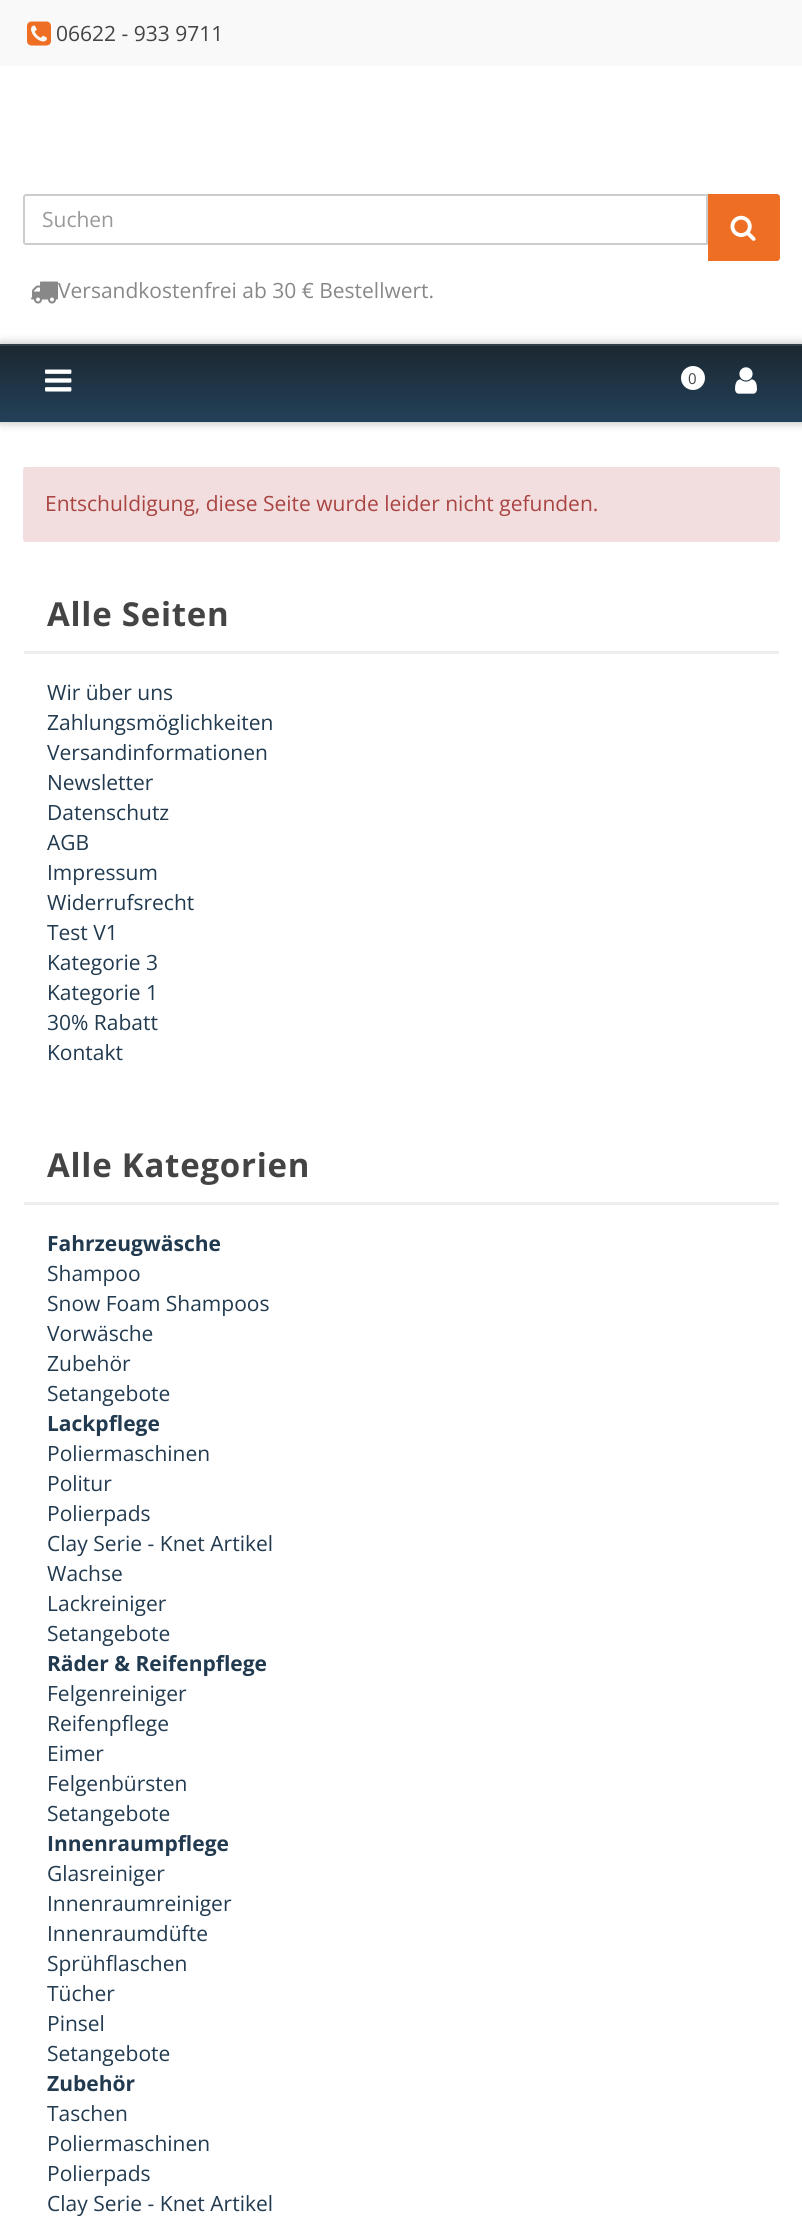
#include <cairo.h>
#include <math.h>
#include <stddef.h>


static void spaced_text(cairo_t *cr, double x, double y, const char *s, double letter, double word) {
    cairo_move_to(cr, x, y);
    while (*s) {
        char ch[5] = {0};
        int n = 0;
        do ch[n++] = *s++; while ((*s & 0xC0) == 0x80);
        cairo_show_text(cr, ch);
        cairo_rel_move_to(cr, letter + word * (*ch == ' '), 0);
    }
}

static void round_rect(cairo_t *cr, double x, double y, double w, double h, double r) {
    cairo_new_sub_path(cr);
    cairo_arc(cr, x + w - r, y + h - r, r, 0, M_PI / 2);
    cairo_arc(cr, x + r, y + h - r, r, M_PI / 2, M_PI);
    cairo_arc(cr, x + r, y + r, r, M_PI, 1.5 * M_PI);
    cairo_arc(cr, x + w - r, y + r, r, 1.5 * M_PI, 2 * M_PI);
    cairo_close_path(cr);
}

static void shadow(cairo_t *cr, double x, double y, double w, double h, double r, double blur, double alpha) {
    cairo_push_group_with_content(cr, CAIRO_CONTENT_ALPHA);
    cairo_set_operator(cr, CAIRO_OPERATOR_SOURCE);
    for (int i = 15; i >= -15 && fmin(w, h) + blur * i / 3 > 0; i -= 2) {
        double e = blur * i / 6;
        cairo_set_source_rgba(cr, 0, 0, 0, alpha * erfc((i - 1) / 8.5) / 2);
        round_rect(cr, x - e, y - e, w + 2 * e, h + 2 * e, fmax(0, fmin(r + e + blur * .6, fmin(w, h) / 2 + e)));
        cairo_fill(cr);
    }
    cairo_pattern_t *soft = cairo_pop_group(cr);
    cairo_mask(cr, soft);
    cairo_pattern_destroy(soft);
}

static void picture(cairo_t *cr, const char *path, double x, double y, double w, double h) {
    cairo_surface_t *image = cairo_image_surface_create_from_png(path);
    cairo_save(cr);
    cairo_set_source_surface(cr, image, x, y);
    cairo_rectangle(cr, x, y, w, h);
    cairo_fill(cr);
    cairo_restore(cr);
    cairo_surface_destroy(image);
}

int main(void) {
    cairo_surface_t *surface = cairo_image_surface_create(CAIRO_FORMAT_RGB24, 802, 2218);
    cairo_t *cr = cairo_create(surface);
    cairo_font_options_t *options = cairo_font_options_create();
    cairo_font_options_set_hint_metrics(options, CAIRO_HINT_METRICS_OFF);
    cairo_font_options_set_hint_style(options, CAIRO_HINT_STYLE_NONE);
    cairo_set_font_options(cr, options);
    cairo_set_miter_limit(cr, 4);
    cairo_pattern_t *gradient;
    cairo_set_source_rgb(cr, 1, 1, 1);
    cairo_paint(cr);
    cairo_set_source_rgb(cr, 0.976, 0.976, 0.976);
    cairo_rectangle(cr, 0, 0, 802, 66);
    cairo_fill(cr);
    picture(cr, "img1.png", 27, 21, 24, 25);
    cairo_select_font_face(cr, "Open Sans", CAIRO_FONT_SLANT_NORMAL, CAIRO_FONT_WEIGHT_NORMAL);
    cairo_set_font_size(cr, 21);
    cairo_set_source_rgb(cr, 0.267, 0.267, 0.267);
    cairo_move_to(cr, 56, 41);
    cairo_show_text(cr, "06622 - 933 9711");
    cairo_new_path(cr);
    cairo_move_to(cr, 26, 195);
    cairo_line_to(cr, 707, 195);
    cairo_line_to(cr, 707, 244);
    cairo_line_to(cr, 26, 244);
    cairo_curve_to(cr, 25, 244, 24, 243, 24, 242);
    cairo_line_to(cr, 24, 197);
    cairo_curve_to(cr, 24, 196, 25, 195, 26, 195);
    cairo_close_path(cr);
    cairo_set_source_rgb(cr, 0.8, 0.8, 0.8);
    cairo_stroke(cr);
    cairo_set_source_rgb(cr, 0.6, 0.6, 0.6);
    cairo_move_to(cr, 42, 227);
    cairo_show_text(cr, "Suchen");
    cairo_set_source_rgb(cr, 0.933, 0.431, 0.137);
    cairo_new_path(cr);
    cairo_move_to(cr, 708, 194);
    cairo_line_to(cr, 777, 194);
    cairo_curve_to(cr, 778.5, 194, 780, 195.5, 780, 197);
    cairo_line_to(cr, 780, 258);
    cairo_curve_to(cr, 780, 259.5, 778.5, 261, 777, 261);
    cairo_line_to(cr, 708, 261);
    cairo_close_path(cr);
    cairo_fill(cr);
    picture(cr, "img2.png", 730, 215, 26, 26);
    picture(cr, "img3.png", 31, 281, 27, 23);
    cairo_set_source_rgb(cr, 0.533, 0.533, 0.533);
    cairo_move_to(cr, 58, 298);
    cairo_show_text(cr, "Versandkostenfrei ab 30 € Bestellwert.");
    cairo_set_source_rgb(cr, 0, 0, 0);
    shadow(cr, 0, 344, 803, 78, 0, 5, 0.3);
    gradient = cairo_pattern_create_linear(401, 343, 401, 422);
    cairo_pattern_add_color_stop_rgba(gradient, 0, 0.106, 0.153, 0.188, 1);
    cairo_pattern_add_color_stop_rgba(gradient, 1, 0.137, 0.251, 0.349, 1);
    cairo_set_source(cr, gradient);
    cairo_pattern_destroy(gradient);
    cairo_rectangle(cr, 0, 346, 802, 76);
    cairo_fill(cr);
    cairo_set_source_rgb(cr, 0.196, 0.239, 0.275);
    cairo_rectangle(cr, 0, 344, 802, 2);
    cairo_fill(cr);
    picture(cr, "img4.png", 45, 369, 27, 23);
    cairo_set_source_rgb(cr, 1, 1, 1);
    cairo_arc(cr, 693, 378, 12, 0, 2 * M_PI);
    cairo_fill(cr);
    cairo_set_font_size(cr, 15);
    cairo_set_source_rgb(cr, 0.267, 0.267, 0.267);
    spaced_text(cr, 688, 384, "0", 0.75, 0);
    picture(cr, "img5.png", 735, 367, 22, 27);
    cairo_set_source_rgb(cr, 0.949, 0.871, 0.871);
    round_rect(cr, 23, 467, 757, 75, 3);
    cairo_fill(cr);
    cairo_set_font_size(cr, 21);
    cairo_set_source_rgb(cr, 0.663, 0.267, 0.259);
    cairo_move_to(cr, 45, 511);
    cairo_show_text(cr, "Entschuldigung, diese Seite wurde leider nicht gefunden.");
    cairo_select_font_face(cr, "Open Sans", CAIRO_FONT_SLANT_NORMAL, CAIRO_FONT_WEIGHT_BOLD);
    cairo_set_font_size(cr, 33);
    cairo_set_source_rgb(cr, 0.267, 0.267, 0.267);
    spaced_text(cr, 47, 626, "Alle Seiten", 0.75, 0);
    cairo_set_source_rgb(cr, 0.933, 0.933, 0.933);
    cairo_rectangle(cr, 24, 651, 755, 3);
    cairo_fill(cr);
    cairo_select_font_face(cr, "Open Sans", CAIRO_FONT_SLANT_NORMAL, CAIRO_FONT_WEIGHT_NORMAL);
    cairo_set_font_size(cr, 21);
    cairo_set_source_rgb(cr, 0.129, 0.227, 0.31);
    cairo_move_to(cr, 47, 700);
    cairo_show_text(cr, "Wir über uns");
    cairo_move_to(cr, 47, 730);
    cairo_show_text(cr, "Zahlungsmöglichkeiten");
    cairo_move_to(cr, 47, 760);
    cairo_show_text(cr, "Versandinformationen");
    cairo_move_to(cr, 47, 790);
    cairo_show_text(cr, "Newsletter");
    cairo_move_to(cr, 47, 820);
    cairo_show_text(cr, "Datenschutz");
    cairo_move_to(cr, 47, 850);
    cairo_show_text(cr, "AGB");
    cairo_move_to(cr, 47, 880);
    cairo_show_text(cr, "Impressum");
    cairo_move_to(cr, 47, 910);
    cairo_show_text(cr, "Widerrufsrecht");
    cairo_move_to(cr, 47, 940);
    cairo_show_text(cr, "Test V1");
    cairo_move_to(cr, 47, 970);
    cairo_show_text(cr, "Kategorie 3");
    cairo_move_to(cr, 47, 1000);
    cairo_show_text(cr, "Kategorie 1");
    cairo_move_to(cr, 47, 1030);
    cairo_show_text(cr, "30% Rabatt");
    cairo_move_to(cr, 47, 1060);
    cairo_show_text(cr, "Kontakt");
    cairo_select_font_face(cr, "Open Sans", CAIRO_FONT_SLANT_NORMAL, CAIRO_FONT_WEIGHT_BOLD);
    cairo_set_font_size(cr, 33);
    cairo_set_source_rgb(cr, 0.267, 0.267, 0.267);
    spaced_text(cr, 47, 1177, "Alle Kategorien", 0.75, 0);
    cairo_set_source_rgb(cr, 0.933, 0.933, 0.933);
    cairo_rectangle(cr, 24, 1202, 755, 3);
    cairo_fill(cr);
    cairo_set_font_size(cr, 21);
    cairo_set_source_rgb(cr, 0.129, 0.227, 0.31);
    cairo_move_to(cr, 47, 1251);
    cairo_show_text(cr, "Fahrzeugwäsche");
    cairo_select_font_face(cr, "Open Sans", CAIRO_FONT_SLANT_NORMAL, CAIRO_FONT_WEIGHT_NORMAL);
    cairo_move_to(cr, 47, 1281);
    cairo_show_text(cr, "Shampoo");
    cairo_move_to(cr, 47, 1311);
    cairo_show_text(cr, "Snow Foam Shampoos");
    cairo_move_to(cr, 47, 1341);
    cairo_show_text(cr, "Vorwäsche");
    cairo_move_to(cr, 47, 1371);
    cairo_show_text(cr, "Zubehör");
    cairo_move_to(cr, 47, 1401);
    cairo_show_text(cr, "Setangebote");
    cairo_select_font_face(cr, "Open Sans", CAIRO_FONT_SLANT_NORMAL, CAIRO_FONT_WEIGHT_BOLD);
    cairo_move_to(cr, 47, 1431);
    cairo_show_text(cr, "Lackpflege");
    cairo_select_font_face(cr, "Open Sans", CAIRO_FONT_SLANT_NORMAL, CAIRO_FONT_WEIGHT_NORMAL);
    cairo_move_to(cr, 47, 1461);
    cairo_show_text(cr, "Poliermaschinen");
    cairo_move_to(cr, 47, 1491);
    cairo_show_text(cr, "Politur");
    cairo_move_to(cr, 47, 1521);
    cairo_show_text(cr, "Polierpads");
    cairo_move_to(cr, 47, 1551);
    cairo_show_text(cr, "Clay Serie - Knet Artikel");
    cairo_move_to(cr, 47, 1581);
    cairo_show_text(cr, "Wachse");
    cairo_move_to(cr, 47, 1611);
    cairo_show_text(cr, "Lackreiniger");
    cairo_move_to(cr, 47, 1641);
    cairo_show_text(cr, "Setangebote");
    cairo_select_font_face(cr, "Open Sans", CAIRO_FONT_SLANT_NORMAL, CAIRO_FONT_WEIGHT_BOLD);
    cairo_move_to(cr, 47, 1671);
    cairo_show_text(cr, "Räder & Reifenpflege");
    cairo_select_font_face(cr, "Open Sans", CAIRO_FONT_SLANT_NORMAL, CAIRO_FONT_WEIGHT_NORMAL);
    cairo_move_to(cr, 47, 1701);
    cairo_show_text(cr, "Felgenreiniger");
    cairo_move_to(cr, 47, 1731);
    cairo_show_text(cr, "Reifenpflege");
    cairo_move_to(cr, 47, 1761);
    cairo_show_text(cr, "Eimer");
    cairo_move_to(cr, 47, 1791);
    cairo_show_text(cr, "Felgenbürsten");
    cairo_move_to(cr, 47, 1821);
    cairo_show_text(cr, "Setangebote");
    cairo_select_font_face(cr, "Open Sans", CAIRO_FONT_SLANT_NORMAL, CAIRO_FONT_WEIGHT_BOLD);
    cairo_move_to(cr, 47, 1851);
    cairo_show_text(cr, "Innenraumpflege");
    cairo_select_font_face(cr, "Open Sans", CAIRO_FONT_SLANT_NORMAL, CAIRO_FONT_WEIGHT_NORMAL);
    cairo_move_to(cr, 47, 1881);
    cairo_show_text(cr, "Glasreiniger");
    cairo_move_to(cr, 47, 1911);
    cairo_show_text(cr, "Innenraumreiniger");
    cairo_move_to(cr, 47, 1941);
    cairo_show_text(cr, "Innenraumdüfte");
    cairo_move_to(cr, 47, 1971);
    cairo_show_text(cr, "Sprühflaschen");
    cairo_move_to(cr, 47, 2001);
    cairo_show_text(cr, "Tücher");
    cairo_move_to(cr, 47, 2031);
    cairo_show_text(cr, "Pinsel");
    cairo_move_to(cr, 47, 2061);
    cairo_show_text(cr, "Setangebote");
    cairo_select_font_face(cr, "Open Sans", CAIRO_FONT_SLANT_NORMAL, CAIRO_FONT_WEIGHT_BOLD);
    cairo_move_to(cr, 47, 2091);
    cairo_show_text(cr, "Zubehör");
    cairo_select_font_face(cr, "Open Sans", CAIRO_FONT_SLANT_NORMAL, CAIRO_FONT_WEIGHT_NORMAL);
    cairo_move_to(cr, 47, 2121);
    cairo_show_text(cr, "Taschen");
    cairo_move_to(cr, 47, 2151);
    cairo_show_text(cr, "Poliermaschinen");
    cairo_move_to(cr, 47, 2181);
    cairo_show_text(cr, "Polierpads");
    cairo_move_to(cr, 47, 2211);
    cairo_show_text(cr, "Clay Serie - Knet Artikel");
    cairo_surface_write_to_png(surface, "page.png");
    cairo_font_options_destroy(options);
    cairo_destroy(cr);
    cairo_surface_destroy(surface);
    return 0;
}
